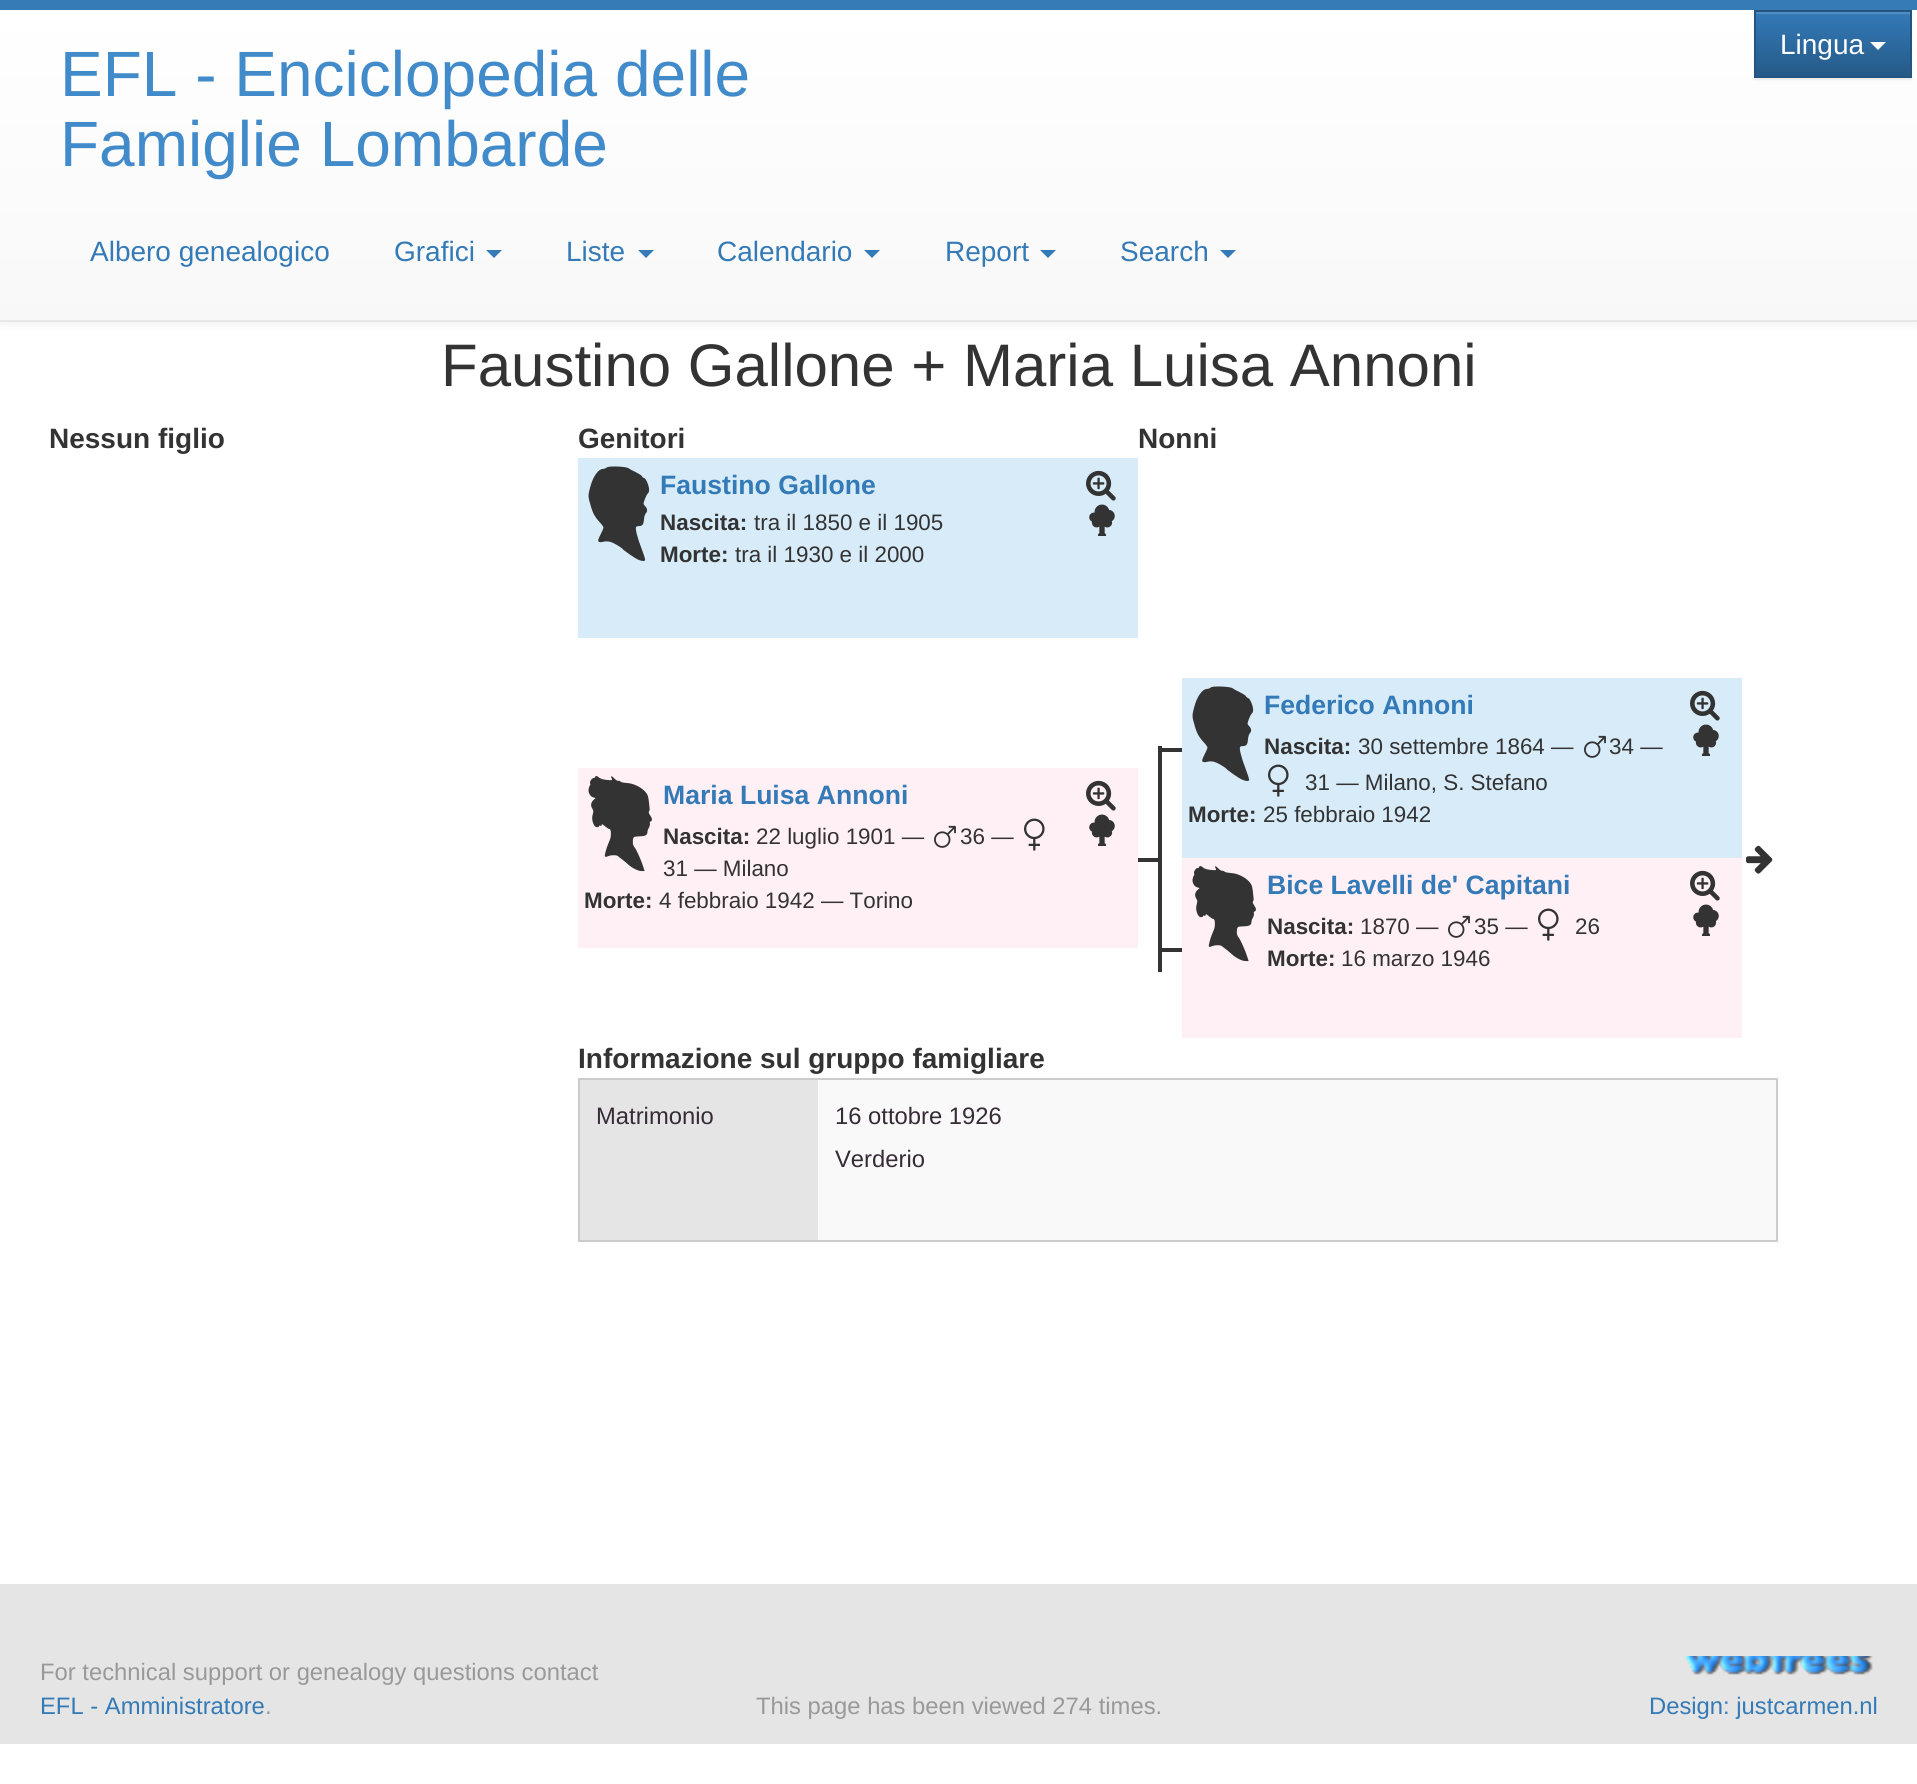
#include <cairo.h>
#include <math.h>
#include <stddef.h>


static void round_rect(cairo_t *cr, double x, double y, double w, double h, double r) {
    cairo_new_sub_path(cr);
    cairo_arc(cr, x + w - r, y + h - r, r, 0, M_PI / 2);
    cairo_arc(cr, x + r, y + h - r, r, M_PI / 2, M_PI);
    cairo_arc(cr, x + r, y + r, r, M_PI, 1.5 * M_PI);
    cairo_arc(cr, x + w - r, y + r, r, 1.5 * M_PI, 2 * M_PI);
    cairo_close_path(cr);
}

static void shadow(cairo_t *cr, double x, double y, double w, double h, double r, double blur, double alpha) {
    cairo_push_group_with_content(cr, CAIRO_CONTENT_ALPHA);
    cairo_set_operator(cr, CAIRO_OPERATOR_SOURCE);
    for (int i = 15; i >= -15 && fmin(w, h) + blur * i / 3 > 0; i -= 2) {
        double e = blur * i / 6;
        cairo_set_source_rgba(cr, 0, 0, 0, alpha * erfc((i - 1) / 8.5) / 2);
        round_rect(cr, x - e, y - e, w + 2 * e, h + 2 * e, fmax(0, fmin(r + e + blur * .6, fmin(w, h) / 2 + e)));
        cairo_fill(cr);
    }
    cairo_pattern_t *soft = cairo_pop_group(cr);
    cairo_mask(cr, soft);
    cairo_pattern_destroy(soft);
}

static void picture(cairo_t *cr, const char *path, double x, double y, double w, double h) {
    cairo_surface_t *image = cairo_image_surface_create_from_png(path);
    cairo_save(cr);
    cairo_set_source_surface(cr, image, x, y);
    cairo_rectangle(cr, x, y, w, h);
    cairo_fill(cr);
    cairo_restore(cr);
    cairo_surface_destroy(image);
}

int main(void) {
    cairo_surface_t *surface = cairo_image_surface_create(CAIRO_FORMAT_RGB24, 1917, 1784);
    cairo_t *cr = cairo_create(surface);
    cairo_font_options_t *options = cairo_font_options_create();
    cairo_font_options_set_hint_metrics(options, CAIRO_HINT_METRICS_OFF);
    cairo_font_options_set_hint_style(options, CAIRO_HINT_STYLE_NONE);
    cairo_set_font_options(cr, options);
    cairo_set_miter_limit(cr, 4);
    cairo_pattern_t *gradient;
    cairo_set_source_rgb(cr, 1, 1, 1);
    cairo_paint(cr);
    cairo_set_source_rgb(cr, 0, 0, 0);
    shadow(cr, 0, 2, 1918, 322, 0, 5, 0.07);
    gradient = cairo_pattern_create_linear(959, 10, 959, 320);
    cairo_pattern_add_color_stop_rgba(gradient, 0, 1, 1, 1, 1);
    cairo_pattern_add_color_stop_rgba(gradient, 1, 0.973, 0.973, 0.973, 1);
    cairo_set_source(cr, gradient);
    cairo_pattern_destroy(gradient);
    cairo_rectangle(cr, 0, 10, 1917, 310);
    cairo_fill(cr);
    cairo_set_source_rgb(cr, 0.216, 0.482, 0.71);
    cairo_rectangle(cr, 0, 0, 1917, 10);
    cairo_fill(cr);
    cairo_set_source_rgb(cr, 0.906, 0.906, 0.906);
    cairo_rectangle(cr, 0, 320, 1917, 2);
    cairo_fill(cr);
    cairo_select_font_face(cr, "Liberation Sans", CAIRO_FONT_SLANT_NORMAL, CAIRO_FONT_WEIGHT_NORMAL);
    cairo_set_font_size(cr, 64);
    cairo_set_source_rgb(cr, 0.259, 0.545, 0.792);
    cairo_move_to(cr, 60, 96);
    cairo_show_text(cr, "EFL - Enciclopedia delle");
    cairo_move_to(cr, 60, 166);
    cairo_show_text(cr, "Famiglie Lombarde");
    cairo_set_source_rgb(cr, 0, 0, 0);
    shadow(cr, 1754, 12, 158, 68, 0, 1, 0.07);
    gradient = cairo_pattern_create_linear(1833, 12, 1833, 76);
    cairo_pattern_add_color_stop_rgba(gradient, 0, 0.2, 0.478, 0.718, 1);
    cairo_pattern_add_color_stop_rgba(gradient, 1, 0.149, 0.353, 0.533, 1);
    cairo_set_source(cr, gradient);
    cairo_pattern_destroy(gradient);
    cairo_rectangle(cr, 1756, 14, 154, 62);
    cairo_fill(cr);
    cairo_set_source_rgb(cr, 0.322, 0.557, 0.757);
    cairo_rectangle(cr, 1756, 12, 154, 2);
    cairo_fill(cr);
    cairo_rectangle(cr, 1755, 11, 156, 66);
    cairo_set_source_rgb(cr, 0.141, 0.333, 0.502);
    cairo_stroke(cr);
    cairo_set_font_size(cr, 28);
    cairo_set_source_rgb(cr, 1, 1, 1);
    cairo_move_to(cr, 1780, 54);
    cairo_show_text(cr, "Lingua");
    cairo_new_path(cr);
    cairo_move_to(cr, 1870, 42);
    cairo_line_to(cr, 1886, 42);
    cairo_line_to(cr, 1878, 50);
    cairo_close_path(cr);
    cairo_fill(cr);
    cairo_set_source_rgb(cr, 0.2, 0.478, 0.718);
    cairo_move_to(cr, 90, 261);
    cairo_show_text(cr, "Albero genealogico");
    cairo_move_to(cr, 394, 261);
    cairo_show_text(cr, "Grafici");
    cairo_new_path(cr);
    cairo_move_to(cr, 486, 250);
    cairo_line_to(cr, 502, 250);
    cairo_line_to(cr, 494, 258);
    cairo_close_path(cr);
    cairo_fill(cr);
    cairo_move_to(cr, 566, 261);
    cairo_show_text(cr, "Liste");
    cairo_new_path(cr);
    cairo_move_to(cr, 638, 250);
    cairo_line_to(cr, 654, 250);
    cairo_line_to(cr, 646, 258);
    cairo_close_path(cr);
    cairo_fill(cr);
    cairo_move_to(cr, 717, 261);
    cairo_show_text(cr, "Calendario");
    cairo_new_path(cr);
    cairo_move_to(cr, 864, 250);
    cairo_line_to(cr, 880, 250);
    cairo_line_to(cr, 872, 258);
    cairo_close_path(cr);
    cairo_fill(cr);
    cairo_move_to(cr, 945, 261);
    cairo_show_text(cr, "Report");
    cairo_new_path(cr);
    cairo_move_to(cr, 1040, 250);
    cairo_line_to(cr, 1056, 250);
    cairo_line_to(cr, 1048, 258);
    cairo_close_path(cr);
    cairo_fill(cr);
    cairo_move_to(cr, 1120, 261);
    cairo_show_text(cr, "Search");
    cairo_new_path(cr);
    cairo_move_to(cr, 1220, 250);
    cairo_line_to(cr, 1236, 250);
    cairo_line_to(cr, 1228, 258);
    cairo_close_path(cr);
    cairo_fill(cr);
    cairo_set_font_size(cr, 60);
    cairo_set_source_rgb(cr, 0.2, 0.2, 0.2);
    cairo_move_to(cr, 441, 386);
    cairo_show_text(cr, "Faustino Gallone + Maria Luisa Annoni");
    cairo_select_font_face(cr, "Liberation Sans", CAIRO_FONT_SLANT_NORMAL, CAIRO_FONT_WEIGHT_BOLD);
    cairo_set_font_size(cr, 28);
    cairo_move_to(cr, 49, 448);
    cairo_show_text(cr, "Nessun figlio");
    cairo_move_to(cr, 578, 448);
    cairo_show_text(cr, "Genitori");
    cairo_move_to(cr, 1138, 448);
    cairo_show_text(cr, "Nonni");
    cairo_set_source_rgb(cr, 0.843, 0.918, 0.976);
    cairo_rectangle(cr, 578, 458, 560, 180);
    cairo_fill(cr);
    picture(cr, "img1.png", 588, 466, 62, 95);
    cairo_set_font_size(cr, 26.6);
    cairo_set_source_rgb(cr, 0.2, 0.478, 0.718);
    cairo_move_to(cr, 660, 494);
    cairo_show_text(cr, "Faustino Gallone");
    cairo_set_font_size(cr, 22.4);
    cairo_set_source_rgb(cr, 0.2, 0.2, 0.2);
    cairo_move_to(cr, 660, 530);
    cairo_show_text(cr, "Nascita:");
    cairo_select_font_face(cr, "Liberation Sans", CAIRO_FONT_SLANT_NORMAL, CAIRO_FONT_WEIGHT_NORMAL);
    cairo_move_to(cr, 754, 530);
    cairo_show_text(cr, "tra il 1850 e il 1905");
    cairo_select_font_face(cr, "Liberation Sans", CAIRO_FONT_SLANT_NORMAL, CAIRO_FONT_WEIGHT_BOLD);
    cairo_move_to(cr, 660, 562);
    cairo_show_text(cr, "Morte:");
    cairo_select_font_face(cr, "Liberation Sans", CAIRO_FONT_SLANT_NORMAL, CAIRO_FONT_WEIGHT_NORMAL);
    cairo_move_to(cr, 735, 562);
    cairo_show_text(cr, "tra il 1930 e il 2000");
    picture(cr, "img2.png", 1086, 470, 30, 31);
    picture(cr, "img3.png", 1089, 504, 26, 32);
    cairo_rectangle(cr, 1158, 746, 4, 226);
    cairo_fill(cr);
    cairo_rectangle(cr, 1162, 748, 20, 4);
    cairo_fill(cr);
    cairo_set_source_rgb(cr, 0.843, 0.918, 0.976);
    cairo_rectangle(cr, 1182, 678, 560, 180);
    cairo_fill(cr);
    picture(cr, "img1.png", 1192, 686, 62, 95);
    cairo_select_font_face(cr, "Liberation Sans", CAIRO_FONT_SLANT_NORMAL, CAIRO_FONT_WEIGHT_BOLD);
    cairo_set_font_size(cr, 26.6);
    cairo_set_source_rgb(cr, 0.2, 0.478, 0.718);
    cairo_move_to(cr, 1264, 714);
    cairo_show_text(cr, "Federico Annoni");
    cairo_set_font_size(cr, 22.4);
    cairo_set_source_rgb(cr, 0.2, 0.2, 0.2);
    cairo_move_to(cr, 1264, 754);
    cairo_show_text(cr, "Nascita:");
    cairo_select_font_face(cr, "Liberation Sans", CAIRO_FONT_SLANT_NORMAL, CAIRO_FONT_WEIGHT_NORMAL);
    cairo_move_to(cr, 1358, 754);
    cairo_show_text(cr, "30 settembre 1864 —");
    picture(cr, "img4.png", 1584, 735, 22, 23);
    cairo_move_to(cr, 1609, 754);
    cairo_show_text(cr, "34 —");
    picture(cr, "img5.png", 1268, 764, 21, 33);
    cairo_move_to(cr, 1305, 790);
    cairo_show_text(cr, "31 — Milano, S. Stefano");
    cairo_select_font_face(cr, "Liberation Sans", CAIRO_FONT_SLANT_NORMAL, CAIRO_FONT_WEIGHT_BOLD);
    cairo_move_to(cr, 1188, 822);
    cairo_show_text(cr, "Morte:");
    cairo_select_font_face(cr, "Liberation Sans", CAIRO_FONT_SLANT_NORMAL, CAIRO_FONT_WEIGHT_NORMAL);
    cairo_move_to(cr, 1263, 822);
    cairo_show_text(cr, "25 febbraio 1942");
    picture(cr, "img2.png", 1690, 690, 30, 31);
    picture(cr, "img3.png", 1693, 724, 26, 32);
    cairo_set_source_rgb(cr, 1, 0.941, 0.961);
    cairo_rectangle(cr, 578, 768, 560, 180);
    cairo_fill(cr);
    picture(cr, "img6.png", 588, 776, 64, 96);
    cairo_select_font_face(cr, "Liberation Sans", CAIRO_FONT_SLANT_NORMAL, CAIRO_FONT_WEIGHT_BOLD);
    cairo_set_font_size(cr, 26.6);
    cairo_set_source_rgb(cr, 0.2, 0.478, 0.718);
    cairo_move_to(cr, 663, 804);
    cairo_show_text(cr, "Maria Luisa Annoni");
    cairo_select_font_face(cr, "Liberation Sans", CAIRO_FONT_SLANT_NORMAL, CAIRO_FONT_WEIGHT_NORMAL);
    cairo_set_font_size(cr, 22.4);
    cairo_set_source_rgb(cr, 0.2, 0.2, 0.2);
    cairo_move_to(cr, 756, 844);
    cairo_show_text(cr, "22 luglio 1901 —");
    picture(cr, "img7.png", 934, 825, 22, 23);
    cairo_move_to(cr, 960, 844);
    cairo_show_text(cr, "36 —");
    picture(cr, "img8.png", 1024, 818, 21, 33);
    cairo_move_to(cr, 663, 876);
    cairo_show_text(cr, "31 — Milano");
    cairo_select_font_face(cr, "Liberation Sans", CAIRO_FONT_SLANT_NORMAL, CAIRO_FONT_WEIGHT_BOLD);
    cairo_move_to(cr, 663, 844);
    cairo_show_text(cr, "Nascita:");
    cairo_move_to(cr, 584, 908);
    cairo_show_text(cr, "Morte:");
    cairo_select_font_face(cr, "Liberation Sans", CAIRO_FONT_SLANT_NORMAL, CAIRO_FONT_WEIGHT_NORMAL);
    cairo_move_to(cr, 659, 908);
    cairo_show_text(cr, "4 febbraio 1942 — Torino");
    picture(cr, "img9.png", 1086, 780, 30, 31);
    picture(cr, "img10.png", 1089, 814, 26, 32);
    cairo_rectangle(cr, 1138, 858, 20, 4);
    cairo_fill(cr);
    picture(cr, "img11.png", 1746, 845, 27, 29);
    cairo_rectangle(cr, 1162, 948, 20, 4);
    cairo_fill(cr);
    cairo_set_source_rgb(cr, 1, 0.941, 0.961);
    cairo_rectangle(cr, 1182, 858, 560, 180);
    cairo_fill(cr);
    picture(cr, "img6.png", 1192, 866, 64, 96);
    cairo_select_font_face(cr, "Liberation Sans", CAIRO_FONT_SLANT_NORMAL, CAIRO_FONT_WEIGHT_BOLD);
    cairo_set_font_size(cr, 26.6);
    cairo_set_source_rgb(cr, 0.2, 0.478, 0.718);
    cairo_move_to(cr, 1267, 894);
    cairo_show_text(cr, "Bice Lavelli de' Capitani");
    cairo_set_font_size(cr, 22.4);
    cairo_set_source_rgb(cr, 0.2, 0.2, 0.2);
    cairo_move_to(cr, 1267, 934);
    cairo_show_text(cr, "Nascita:");
    cairo_select_font_face(cr, "Liberation Sans", CAIRO_FONT_SLANT_NORMAL, CAIRO_FONT_WEIGHT_NORMAL);
    cairo_move_to(cr, 1360, 934);
    cairo_show_text(cr, "1870 —");
    picture(cr, "img7.png", 1448, 915, 22, 23);
    cairo_move_to(cr, 1474, 934);
    cairo_show_text(cr, "35 —");
    picture(cr, "img8.png", 1538, 908, 21, 33);
    cairo_move_to(cr, 1575, 934);
    cairo_show_text(cr, "26");
    cairo_select_font_face(cr, "Liberation Sans", CAIRO_FONT_SLANT_NORMAL, CAIRO_FONT_WEIGHT_BOLD);
    cairo_move_to(cr, 1267, 966);
    cairo_show_text(cr, "Morte:");
    cairo_select_font_face(cr, "Liberation Sans", CAIRO_FONT_SLANT_NORMAL, CAIRO_FONT_WEIGHT_NORMAL);
    cairo_move_to(cr, 1341, 966);
    cairo_show_text(cr, "16 marzo 1946");
    picture(cr, "img9.png", 1690, 870, 30, 31);
    picture(cr, "img10.png", 1693, 904, 26, 32);
    cairo_select_font_face(cr, "Liberation Sans", CAIRO_FONT_SLANT_NORMAL, CAIRO_FONT_WEIGHT_BOLD);
    cairo_set_font_size(cr, 28);
    cairo_move_to(cr, 578, 1068);
    cairo_show_text(cr, "Informazione sul gruppo famigliare");
    cairo_set_source_rgb(cr, 0.8, 0.8, 0.8);
    cairo_rectangle(cr, 578, 1078, 1200, 2);
    cairo_fill(cr);
    cairo_rectangle(cr, 1776, 1078, 2, 164);
    cairo_fill(cr);
    cairo_rectangle(cr, 578, 1240, 1200, 2);
    cairo_fill(cr);
    cairo_rectangle(cr, 578, 1078, 2, 164);
    cairo_fill(cr);
    cairo_set_source_rgb(cr, 0.898, 0.898, 0.898);
    cairo_rectangle(cr, 580, 1080, 238, 160);
    cairo_fill(cr);
    cairo_select_font_face(cr, "Liberation Sans", CAIRO_FONT_SLANT_NORMAL, CAIRO_FONT_WEIGHT_NORMAL);
    cairo_set_font_size(cr, 23.8);
    cairo_set_source_rgb(cr, 0.212, 0.169, 0.212);
    cairo_move_to(cr, 596, 1124);
    cairo_show_text(cr, "Matrimonio");
    cairo_set_source_rgb(cr, 0.976, 0.976, 0.976);
    cairo_rectangle(cr, 818, 1080, 958, 160);
    cairo_fill(cr);
    cairo_set_source_rgb(cr, 0.212, 0.169, 0.212);
    cairo_move_to(cr, 835, 1124);
    cairo_show_text(cr, "16 ottobre 1926");
    cairo_move_to(cr, 835, 1167);
    cairo_show_text(cr, "Verderio");
    cairo_set_source_rgb(cr, 0.898, 0.898, 0.898);
    cairo_rectangle(cr, 0, 1584, 1917, 160);
    cairo_fill(cr);
    cairo_set_source_rgb(cr, 0.6, 0.6, 0.6);
    cairo_move_to(cr, 40, 1680);
    cairo_show_text(cr, "For technical support or genealogy questions contact");
    cairo_set_source_rgb(cr, 0.2, 0.478, 0.718);
    cairo_move_to(cr, 40, 1714);
    cairo_show_text(cr, "EFL - Amministratore");
    cairo_set_source_rgb(cr, 0.6, 0.6, 0.6);
    cairo_move_to(cr, 265, 1714);
    cairo_show_text(cr, ".");
    cairo_move_to(cr, 756, 1714);
    cairo_show_text(cr, "This page has been viewed 274 times.");
    picture(cr, "img12.png", 1684, 1656, 189, 19);
    cairo_set_source_rgb(cr, 0.2, 0.478, 0.718);
    cairo_move_to(cr, 1649, 1714);
    cairo_show_text(cr, "Design: justcarmen.nl");
    cairo_surface_write_to_png(surface, "page.png");
    cairo_font_options_destroy(options);
    cairo_destroy(cr);
    cairo_surface_destroy(surface);
    return 0;
}
